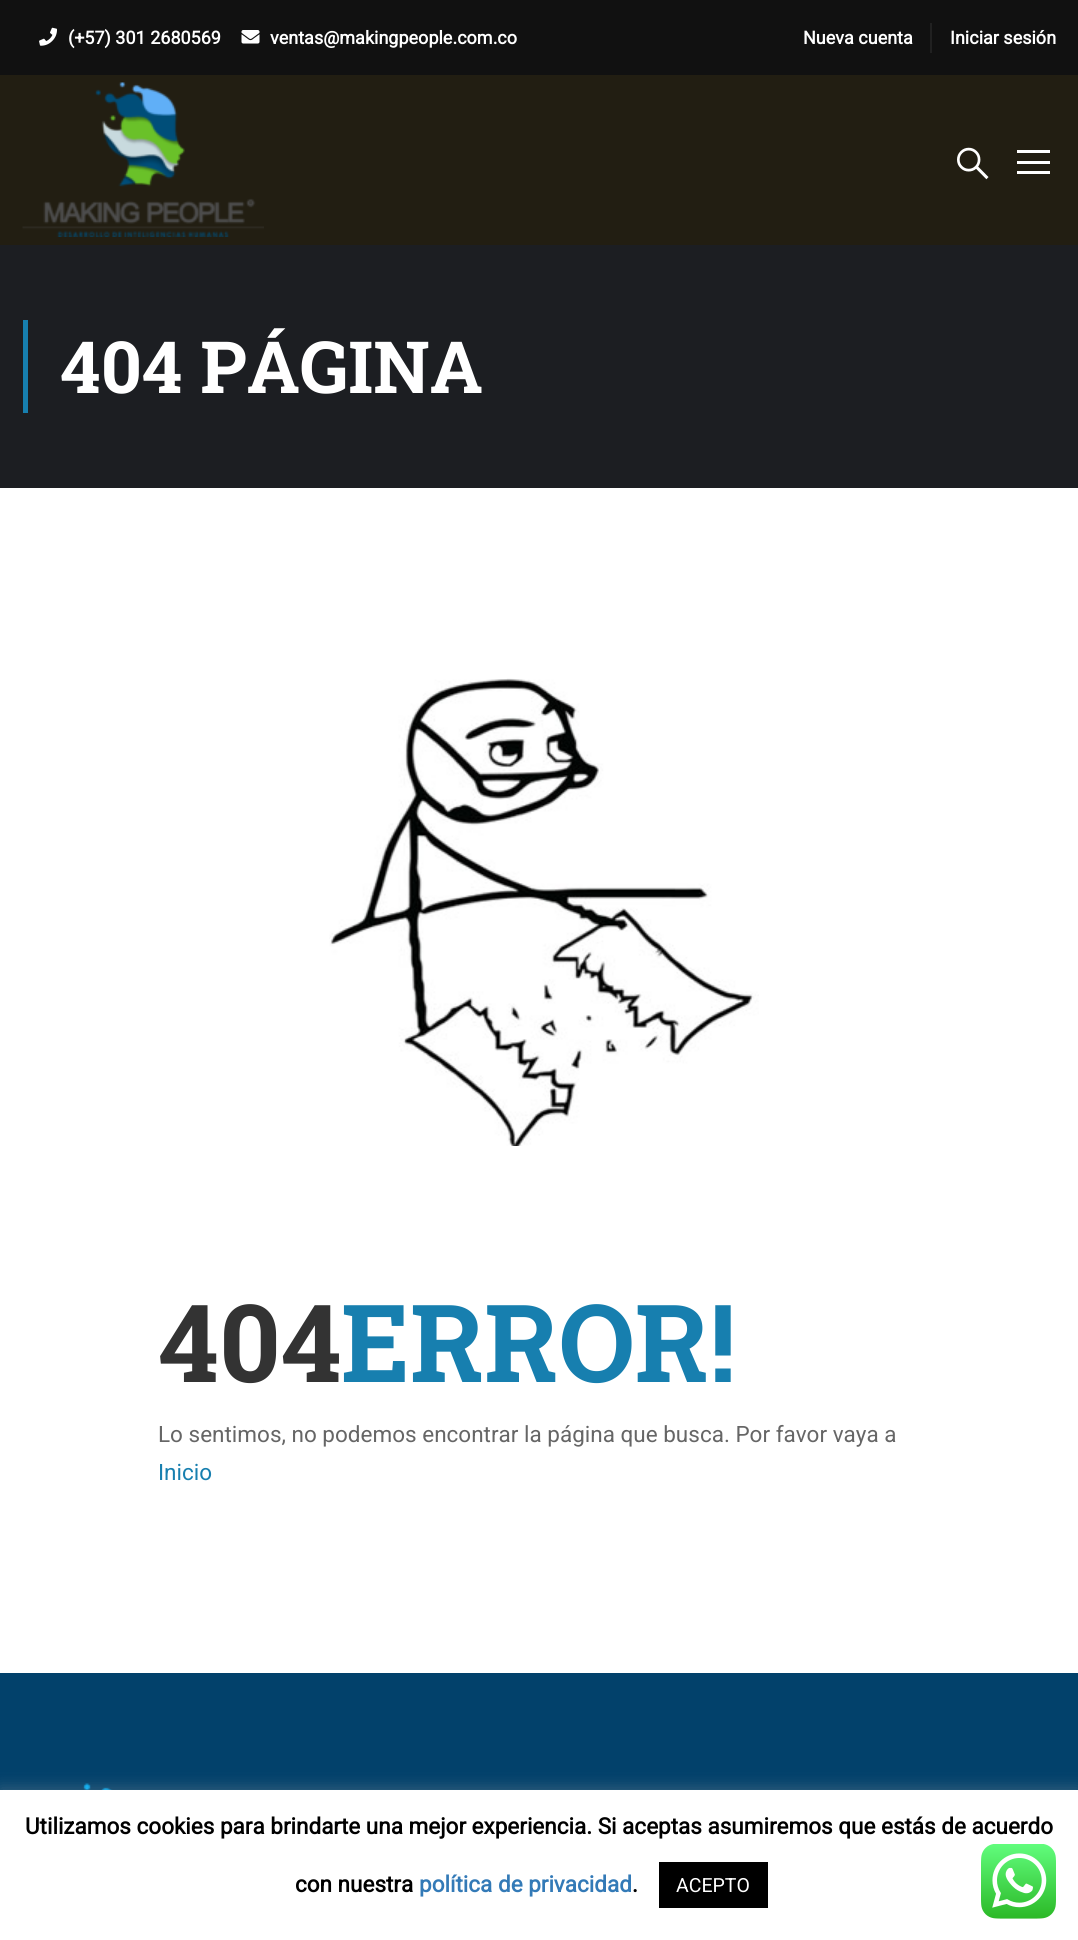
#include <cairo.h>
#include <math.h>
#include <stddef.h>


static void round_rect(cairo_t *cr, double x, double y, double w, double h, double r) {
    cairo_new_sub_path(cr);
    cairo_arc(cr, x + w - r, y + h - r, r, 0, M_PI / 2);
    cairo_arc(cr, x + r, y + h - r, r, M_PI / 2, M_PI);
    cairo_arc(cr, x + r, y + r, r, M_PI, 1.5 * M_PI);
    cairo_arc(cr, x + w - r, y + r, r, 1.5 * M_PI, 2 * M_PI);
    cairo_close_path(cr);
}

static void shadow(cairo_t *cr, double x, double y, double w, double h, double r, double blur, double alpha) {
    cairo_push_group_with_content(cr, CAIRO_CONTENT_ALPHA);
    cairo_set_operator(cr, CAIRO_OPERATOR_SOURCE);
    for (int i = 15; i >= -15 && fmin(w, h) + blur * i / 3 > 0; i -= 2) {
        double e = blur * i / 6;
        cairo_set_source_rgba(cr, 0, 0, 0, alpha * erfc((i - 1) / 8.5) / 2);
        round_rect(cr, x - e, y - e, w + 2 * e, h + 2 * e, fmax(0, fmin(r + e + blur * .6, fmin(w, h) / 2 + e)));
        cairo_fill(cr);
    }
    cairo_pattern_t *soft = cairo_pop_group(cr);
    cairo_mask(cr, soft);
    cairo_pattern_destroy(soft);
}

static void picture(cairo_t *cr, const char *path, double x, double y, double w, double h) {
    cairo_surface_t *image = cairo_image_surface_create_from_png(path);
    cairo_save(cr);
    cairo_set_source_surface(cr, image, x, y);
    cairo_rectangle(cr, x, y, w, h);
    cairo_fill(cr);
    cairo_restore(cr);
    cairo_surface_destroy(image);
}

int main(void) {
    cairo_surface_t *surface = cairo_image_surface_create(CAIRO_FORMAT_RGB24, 1078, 1940);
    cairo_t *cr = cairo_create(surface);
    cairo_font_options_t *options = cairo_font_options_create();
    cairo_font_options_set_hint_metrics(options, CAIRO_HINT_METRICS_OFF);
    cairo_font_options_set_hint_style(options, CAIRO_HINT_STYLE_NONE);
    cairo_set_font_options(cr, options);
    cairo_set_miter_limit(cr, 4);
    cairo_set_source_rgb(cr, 1, 1, 1);
    cairo_paint(cr);
    cairo_set_source_rgb(cr, 0.133, 0.118, 0.071);
    cairo_rectangle(cr, 0, 75, 1078, 170);
    cairo_fill(cr);
    cairo_set_source_rgb(cr, 0.067, 0.067, 0.067);
    cairo_rectangle(cr, 0, 0, 1078, 75);
    cairo_fill(cr);
    picture(cr, "img1.png", 39, 27, 18, 19);
    cairo_select_font_face(cr, "Roboto", CAIRO_FONT_SLANT_NORMAL, CAIRO_FONT_WEIGHT_BOLD);
    cairo_set_font_size(cr, 18);
    cairo_set_source_rgb(cr, 1, 1, 1);
    cairo_move_to(cr, 68, 44);
    cairo_show_text(cr, "(+57) 301 2680569");
    picture(cr, "img2.png", 241, 30, 19, 14);
    cairo_move_to(cr, 270, 44);
    cairo_show_text(cr, "ventas@makingpeople.com.co");
    cairo_set_source_rgb(cr, 0.129, 0.129, 0.129);
    cairo_rectangle(cr, 930, 23, 2, 30);
    cairo_fill(cr);
    cairo_set_source_rgb(cr, 1, 1, 1);
    cairo_move_to(cr, 803, 44);
    cairo_show_text(cr, "Nueva cuenta");
    cairo_move_to(cr, 950, 44);
    cairo_show_text(cr, "Iniciar sesión");
    picture(cr, "img3.png", 22, 82, 242, 155);
    picture(cr, "img4.png", 957, 147, 32, 33);
    cairo_rectangle(cr, 1017, 150, 33, 3);
    cairo_fill(cr);
    cairo_rectangle(cr, 1017, 161, 33, 3);
    cairo_fill(cr);
    cairo_rectangle(cr, 1017, 171, 33, 3);
    cairo_fill(cr);
    cairo_set_source_rgb(cr, 0.11, 0.118, 0.133);
    cairo_rectangle(cr, 0, 245, 1078, 243);
    cairo_fill(cr);
    cairo_set_source_rgb(cr, 0.09, 0.498, 0.686);
    cairo_rectangle(cr, 23, 320, 5, 93);
    cairo_fill(cr);
    cairo_select_font_face(cr, "Roboto Slab", CAIRO_FONT_SLANT_NORMAL, CAIRO_FONT_WEIGHT_BOLD);
    cairo_set_font_size(cr, 72);
    cairo_set_source_rgb(cr, 1, 1, 1);
    cairo_move_to(cr, 60, 393);
    cairo_show_text(cr, "404 PÁGINA");
    picture(cr, "img5.png", 329, 678, 430, 468);
    cairo_set_font_size(cr, 108);
    cairo_set_source_rgb(cr, 0.2, 0.2, 0.2);
    cairo_move_to(cr, 158, 1382);
    cairo_show_text(cr, "404");
    cairo_set_source_rgb(cr, 0.09, 0.498, 0.686);
    cairo_move_to(cr, 341, 1382);
    cairo_show_text(cr, "ERROR!");
    cairo_select_font_face(cr, "Roboto", CAIRO_FONT_SLANT_NORMAL, CAIRO_FONT_WEIGHT_NORMAL);
    cairo_set_font_size(cr, 22.5);
    cairo_set_source_rgb(cr, 0.4, 0.4, 0.4);
    cairo_move_to(cr, 158, 1442);
    cairo_show_text(cr, "Lo sentimos, no podemos encontrar la página que busca. Por favor vaya a");
    cairo_set_source_rgb(cr, 0.09, 0.498, 0.686);
    cairo_move_to(cr, 158, 1480);
    cairo_show_text(cr, "Inicio");
    cairo_set_source_rgb(cr, 0.008, 0.255, 0.42);
    cairo_rectangle(cr, 0, 1673, 1078, 117);
    cairo_fill(cr);
    picture(cr, "img6.png", 83, 1783, 30, 7);
    cairo_set_source_rgb(cr, 0.675, 0.671, 0.671);
    shadow(cr, 0, 1788, 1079, 152, 0, 7.5, 0.3);
    cairo_set_source_rgb(cr, 1, 1, 1);
    cairo_rectangle(cr, 0, 1790, 1078, 150);
    cairo_fill(cr);
    cairo_select_font_face(cr, "Roboto", CAIRO_FONT_SLANT_NORMAL, CAIRO_FONT_WEIGHT_BOLD);
    cairo_set_source_rgb(cr, 0, 0, 0);
    cairo_move_to(cr, 25, 1834);
    cairo_show_text(cr, "Utilizamos cookies para brindarte una mejor experiencia. Si aceptas asumiremos que estás de acuerdo");
    cairo_move_to(cr, 295, 1892);
    cairo_show_text(cr, "con nuestra");
    cairo_set_source_rgb(cr, 0.2, 0.478, 0.718);
    cairo_move_to(cr, 419, 1892);
    cairo_show_text(cr, "política de privacidad");
    cairo_set_source_rgb(cr, 0, 0, 0);
    cairo_move_to(cr, 632, 1892);
    cairo_show_text(cr, ".");
    cairo_rectangle(cr, 659, 1862, 109, 46);
    cairo_fill(cr);
    cairo_select_font_face(cr, "Roboto", CAIRO_FONT_SLANT_NORMAL, CAIRO_FONT_WEIGHT_NORMAL);
    cairo_set_font_size(cr, 19.5);
    cairo_set_source_rgb(cr, 1, 1, 1);
    cairo_move_to(cr, 676, 1892);
    cairo_show_text(cr, "ACEPTO");
    picture(cr, "img7.png", 981, 1844, 75, 75);
    cairo_surface_write_to_png(surface, "page.png");
    cairo_font_options_destroy(options);
    cairo_destroy(cr);
    cairo_surface_destroy(surface);
    return 0;
}
